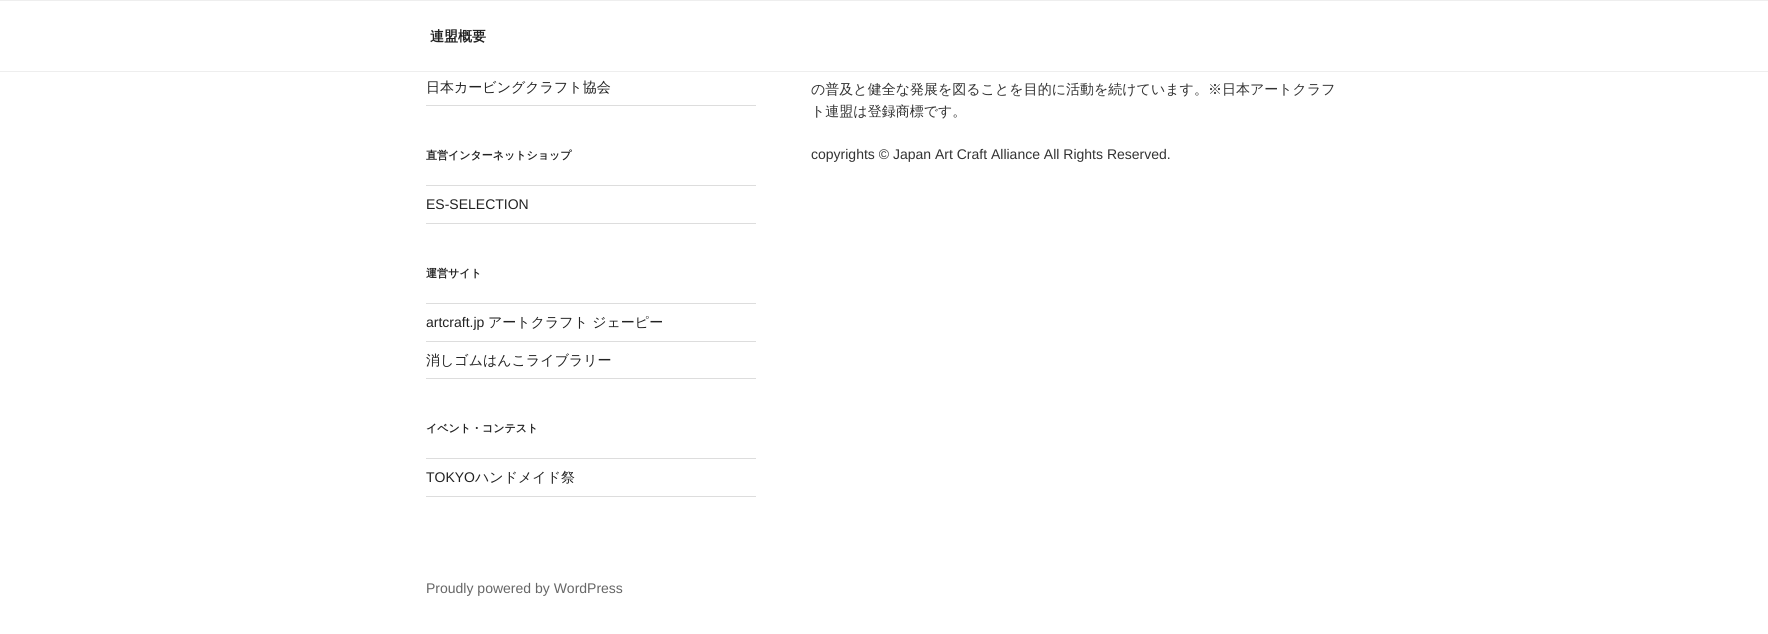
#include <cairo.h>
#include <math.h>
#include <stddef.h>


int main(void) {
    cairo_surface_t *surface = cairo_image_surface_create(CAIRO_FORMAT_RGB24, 1768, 634);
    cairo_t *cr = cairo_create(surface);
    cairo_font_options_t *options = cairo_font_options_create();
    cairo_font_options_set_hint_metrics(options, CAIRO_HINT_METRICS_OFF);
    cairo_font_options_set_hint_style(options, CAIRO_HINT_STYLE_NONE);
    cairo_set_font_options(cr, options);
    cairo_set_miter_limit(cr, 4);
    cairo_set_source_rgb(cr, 1, 1, 1);
    cairo_paint(cr);
    cairo_set_source_rgb(cr, 0.933, 0.933, 0.933);
    cairo_rectangle(cr, 0, 0, 1768, 1);
    cairo_fill(cr);
    cairo_rectangle(cr, 0, 71, 1768, 1);
    cairo_fill(cr);
    cairo_select_font_face(cr, "WenQuanYi Zen Hei", CAIRO_FONT_SLANT_NORMAL, CAIRO_FONT_WEIGHT_BOLD);
    cairo_set_font_size(cr, 14);
    cairo_set_source_rgb(cr, 0.133, 0.133, 0.133);
    cairo_move_to(cr, 430, 41);
    cairo_show_text(cr, "連盟概要");
    cairo_set_source_rgb(cr, 0.867, 0.867, 0.867);
    cairo_rectangle(cr, 426, 105, 330, 1);
    cairo_fill(cr);
    cairo_select_font_face(cr, "WenQuanYi Zen Hei Medium", CAIRO_FONT_SLANT_NORMAL, CAIRO_FONT_WEIGHT_NORMAL);
    cairo_set_source_rgb(cr, 0.133, 0.133, 0.133);
    cairo_move_to(cr, 426, 92);
    cairo_show_text(cr, "日本カービングクラフト協会");
    cairo_select_font_face(cr, "WenQuanYi Zen Hei", CAIRO_FONT_SLANT_NORMAL, CAIRO_FONT_WEIGHT_BOLD);
    cairo_set_font_size(cr, 11);
    cairo_move_to(cr, 426, 159);
    cairo_show_text(cr, "直営インターネットショップ");
    cairo_set_source_rgb(cr, 0.867, 0.867, 0.867);
    cairo_rectangle(cr, 426, 185, 330, 1);
    cairo_fill(cr);
    cairo_rectangle(cr, 426, 223, 330, 1);
    cairo_fill(cr);
    cairo_select_font_face(cr, "Liberation Sans", CAIRO_FONT_SLANT_NORMAL, CAIRO_FONT_WEIGHT_NORMAL);
    cairo_set_font_size(cr, 14);
    cairo_set_source_rgb(cr, 0.133, 0.133, 0.133);
    cairo_move_to(cr, 426, 209);
    cairo_show_text(cr, "ES-SELECTION");
    cairo_select_font_face(cr, "WenQuanYi Zen Hei", CAIRO_FONT_SLANT_NORMAL, CAIRO_FONT_WEIGHT_BOLD);
    cairo_set_font_size(cr, 11);
    cairo_move_to(cr, 426, 277);
    cairo_show_text(cr, "運営サイト");
    cairo_set_source_rgb(cr, 0.867, 0.867, 0.867);
    cairo_rectangle(cr, 426, 303, 330, 1);
    cairo_fill(cr);
    cairo_rectangle(cr, 426, 341, 330, 1);
    cairo_fill(cr);
    cairo_select_font_face(cr, "Liberation Sans", CAIRO_FONT_SLANT_NORMAL, CAIRO_FONT_WEIGHT_NORMAL);
    cairo_set_font_size(cr, 14);
    cairo_set_source_rgb(cr, 0.133, 0.133, 0.133);
    cairo_move_to(cr, 426, 327);
    cairo_show_text(cr, "artcraft.jp");
    cairo_select_font_face(cr, "WenQuanYi Zen Hei Medium", CAIRO_FONT_SLANT_NORMAL, CAIRO_FONT_WEIGHT_NORMAL);
    cairo_move_to(cr, 488, 327);
    cairo_show_text(cr, "アートクラフト ジェーピー");
    cairo_set_source_rgb(cr, 0.867, 0.867, 0.867);
    cairo_rectangle(cr, 426, 378, 330, 1);
    cairo_fill(cr);
    cairo_set_source_rgb(cr, 0.133, 0.133, 0.133);
    cairo_move_to(cr, 426, 365);
    cairo_show_text(cr, "消しゴムはんこライブラリー");
    cairo_select_font_face(cr, "WenQuanYi Zen Hei", CAIRO_FONT_SLANT_NORMAL, CAIRO_FONT_WEIGHT_BOLD);
    cairo_set_font_size(cr, 11);
    cairo_move_to(cr, 426, 432);
    cairo_show_text(cr, "イベント・コンテスト");
    cairo_set_source_rgb(cr, 0.867, 0.867, 0.867);
    cairo_rectangle(cr, 426, 458, 330, 1);
    cairo_fill(cr);
    cairo_rectangle(cr, 426, 496, 330, 1);
    cairo_fill(cr);
    cairo_select_font_face(cr, "Liberation Sans", CAIRO_FONT_SLANT_NORMAL, CAIRO_FONT_WEIGHT_NORMAL);
    cairo_set_font_size(cr, 14);
    cairo_set_source_rgb(cr, 0.133, 0.133, 0.133);
    cairo_move_to(cr, 426, 482);
    cairo_show_text(cr, "TOKYO");
    cairo_select_font_face(cr, "WenQuanYi Zen Hei Medium", CAIRO_FONT_SLANT_NORMAL, CAIRO_FONT_WEIGHT_NORMAL);
    cairo_move_to(cr, 475, 482);
    cairo_show_text(cr, "ハンドメイド祭");
    cairo_set_source_rgb(cr, 0.2, 0.2, 0.2);
    cairo_move_to(cr, 811, 94);
    cairo_show_text(cr, "の普及と健全な発展を図ることを目的に活動を続けています。※日本アートクラフ");
    cairo_move_to(cr, 811, 116);
    cairo_show_text(cr, "ト連盟は登録商標です。");
    cairo_select_font_face(cr, "Liberation Sans", CAIRO_FONT_SLANT_NORMAL, CAIRO_FONT_WEIGHT_NORMAL);
    cairo_move_to(cr, 811, 159);
    cairo_show_text(cr, "copyrights © Japan Art Craft Alliance All Rights Reserved.");
    cairo_set_source_rgb(cr, 0.4, 0.4, 0.4);
    cairo_move_to(cr, 426, 593);
    cairo_show_text(cr, "Proudly powered by WordPress");
    cairo_surface_write_to_png(surface, "page.png");
    cairo_font_options_destroy(options);
    cairo_destroy(cr);
    cairo_surface_destroy(surface);
    return 0;
}
